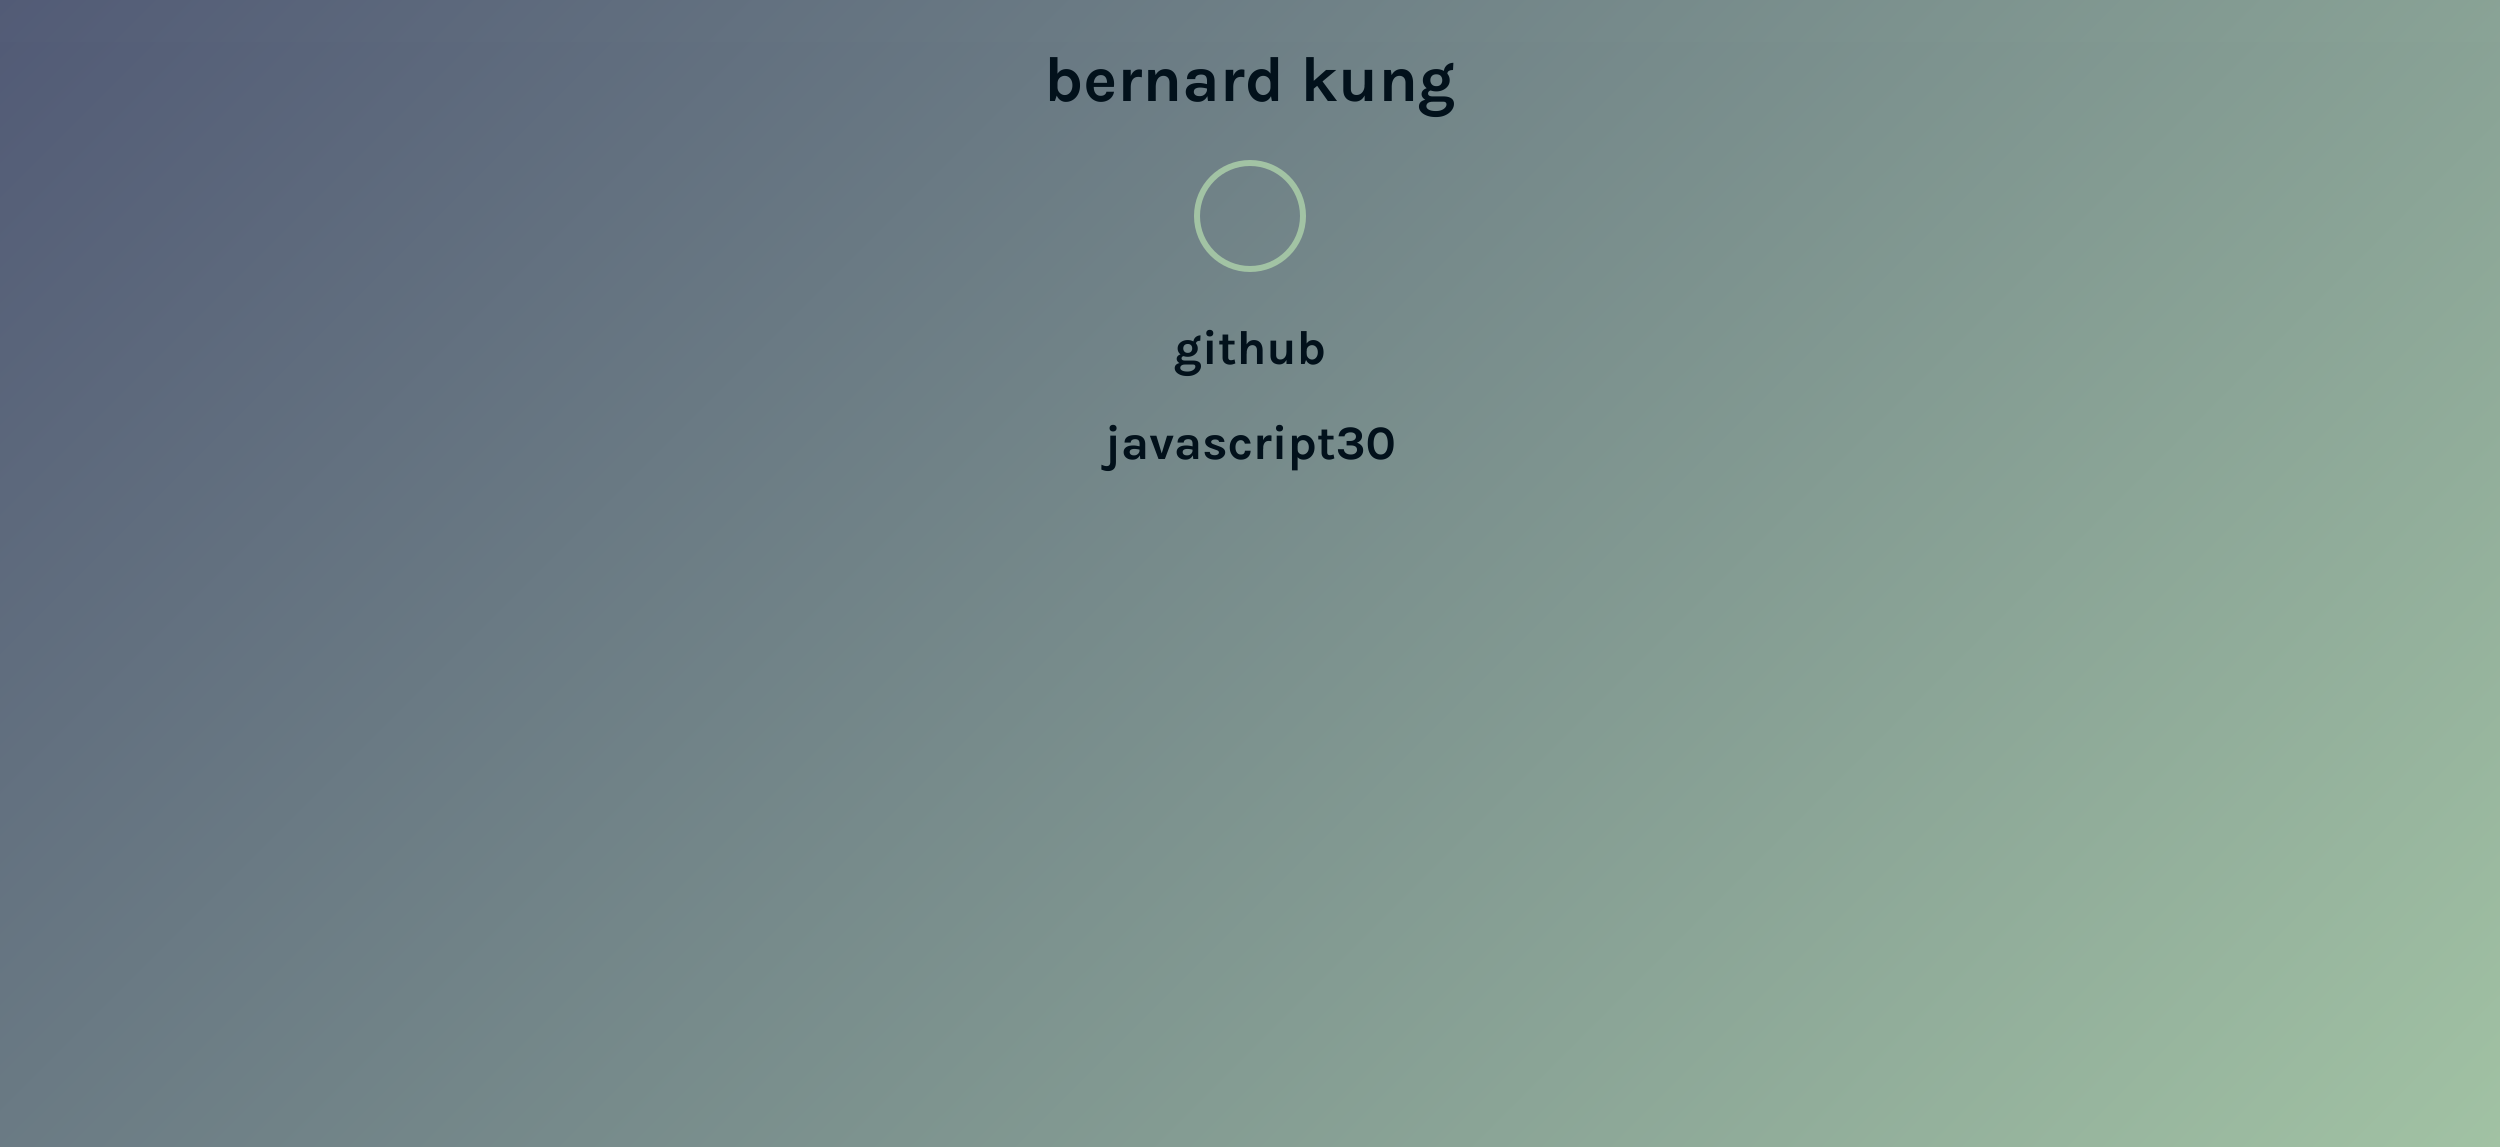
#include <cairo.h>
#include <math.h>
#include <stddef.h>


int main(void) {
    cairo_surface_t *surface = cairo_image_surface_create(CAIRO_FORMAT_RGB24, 2500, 1147);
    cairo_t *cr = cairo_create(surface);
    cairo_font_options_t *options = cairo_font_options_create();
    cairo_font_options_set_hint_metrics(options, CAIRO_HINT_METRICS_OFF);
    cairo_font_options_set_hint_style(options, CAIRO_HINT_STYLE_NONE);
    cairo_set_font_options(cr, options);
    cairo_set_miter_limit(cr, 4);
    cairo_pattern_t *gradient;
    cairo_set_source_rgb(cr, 1, 1, 1);
    cairo_paint(cr);
    gradient = cairo_pattern_create_linear(338, -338, 2162, 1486);
    cairo_pattern_add_color_stop_rgba(gradient, 0, 0.322, 0.357, 0.463, 1);
    cairo_pattern_add_color_stop_rgba(gradient, 1, 0.635, 0.765, 0.643, 1);
    cairo_set_source(cr, gradient);
    cairo_pattern_destroy(gradient);
    cairo_rectangle(cr, 0, 0, 2500, 42);
    cairo_fill(cr);
    gradient = cairo_pattern_create_linear(338, -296, 2162, 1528);
    cairo_pattern_add_color_stop_rgba(gradient, 0, 0.322, 0.357, 0.463, 1);
    cairo_pattern_add_color_stop_rgba(gradient, 1, 0.635, 0.765, 0.643, 1);
    cairo_set_source(cr, gradient);
    cairo_pattern_destroy(gradient);
    cairo_rectangle(cr, 0, 42, 2500, 1105);
    cairo_fill(cr);
    cairo_select_font_face(cr, "Karla", CAIRO_FONT_SLANT_NORMAL, CAIRO_FONT_WEIGHT_BOLD);
    cairo_set_font_size(cr, 64);
    cairo_set_source_rgb(cr, 0.008, 0.067, 0.106);
    cairo_move_to(cr, 1044, 101);
    cairo_show_text(cr, "bernard kung");
    cairo_new_path(cr);
    cairo_arc(cr, 1250, 216, 53, 0, 2 * M_PI);
    cairo_set_source_rgb(cr, 0.635, 0.765, 0.643);
    cairo_set_line_width(cr, 6);
    cairo_stroke(cr);
    cairo_set_font_size(cr, 48);
    cairo_set_source_rgb(cr, 0.008, 0.067, 0.106);
    cairo_move_to(cr, 1174, 364);
    cairo_show_text(cr, "github");
    cairo_move_to(cr, 1105, 459);
    cairo_show_text(cr, "javascript30");
    cairo_surface_write_to_png(surface, "page.png");
    cairo_font_options_destroy(options);
    cairo_destroy(cr);
    cairo_surface_destroy(surface);
    return 0;
}
